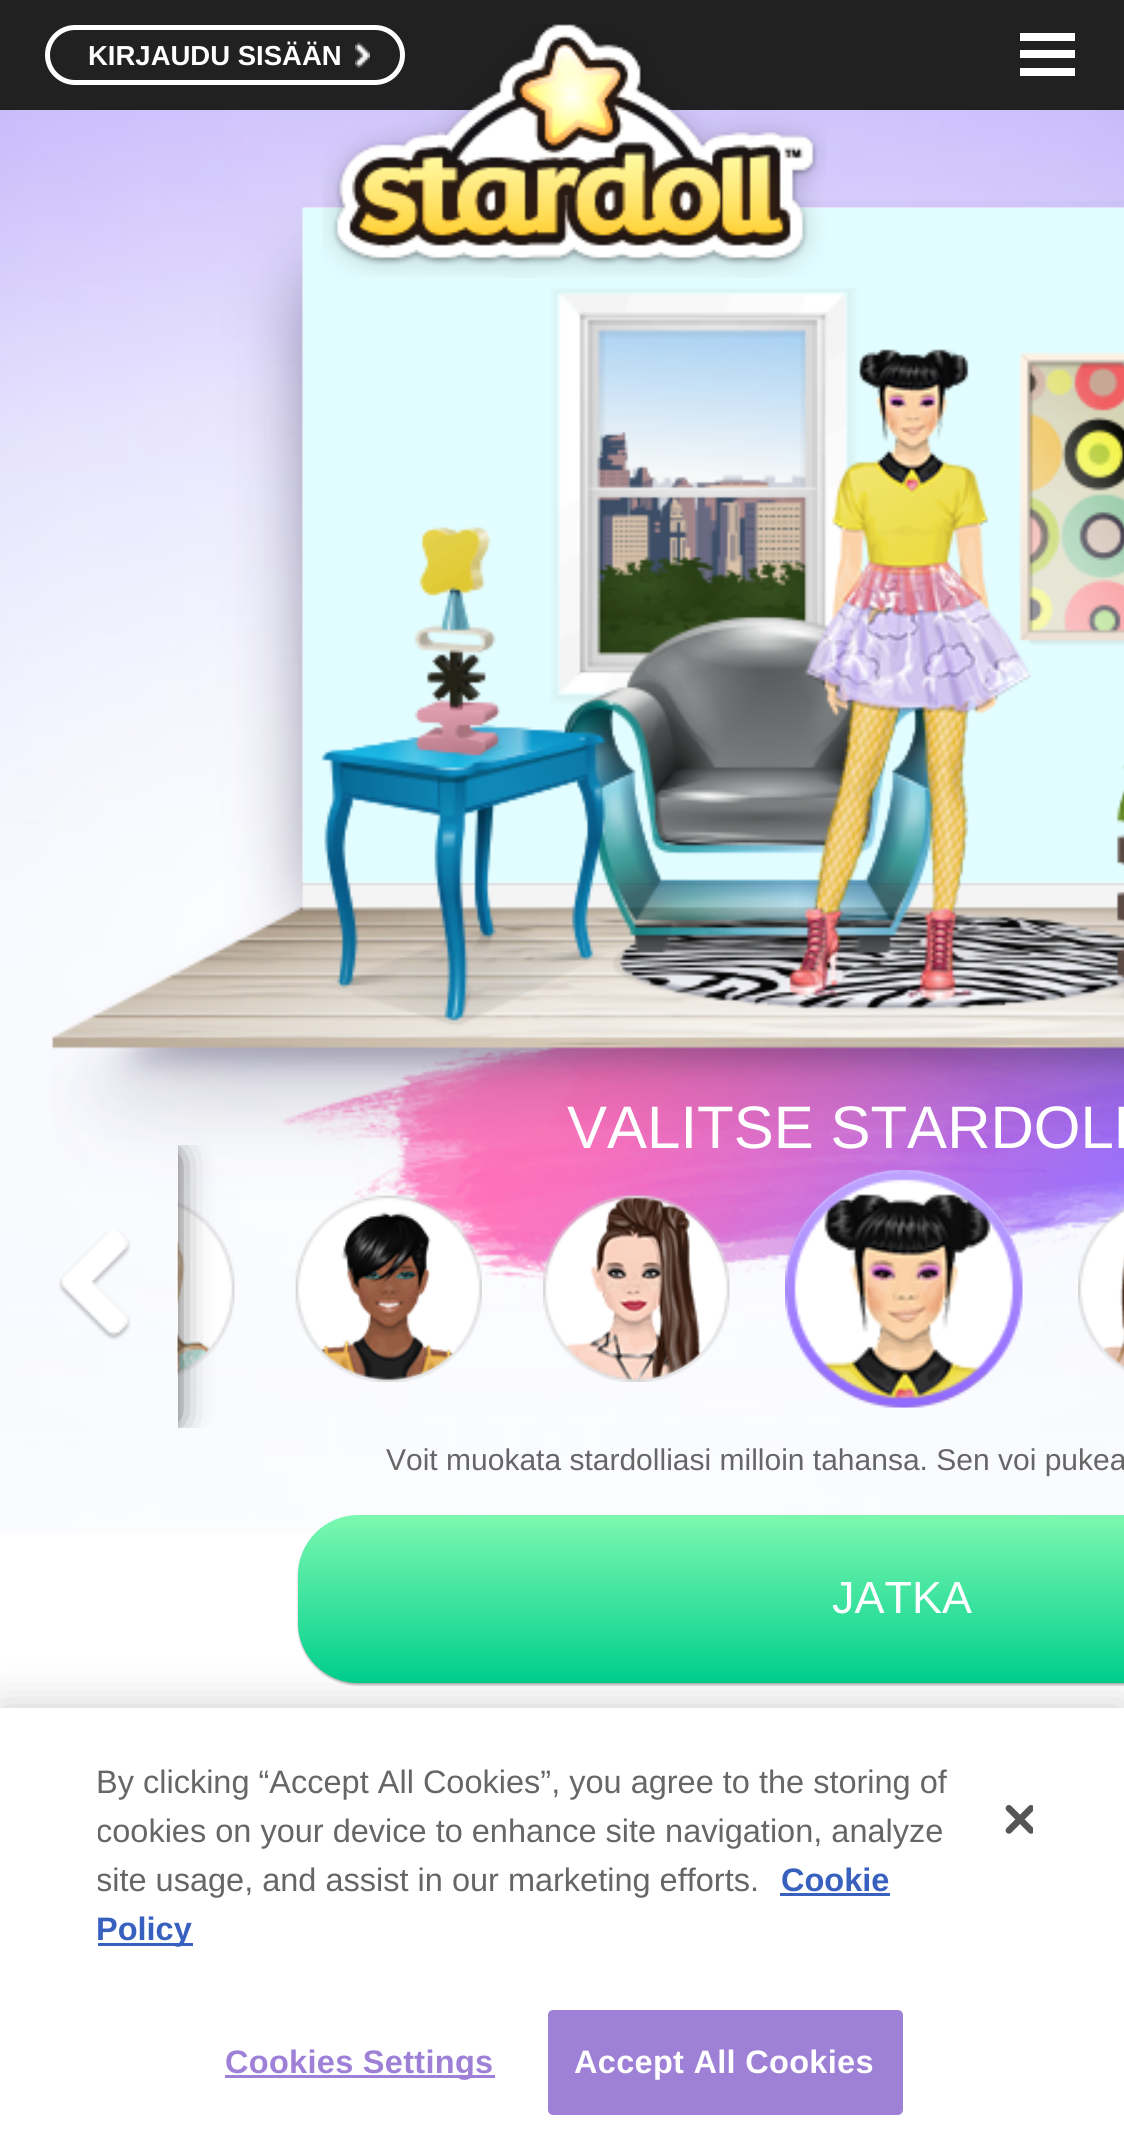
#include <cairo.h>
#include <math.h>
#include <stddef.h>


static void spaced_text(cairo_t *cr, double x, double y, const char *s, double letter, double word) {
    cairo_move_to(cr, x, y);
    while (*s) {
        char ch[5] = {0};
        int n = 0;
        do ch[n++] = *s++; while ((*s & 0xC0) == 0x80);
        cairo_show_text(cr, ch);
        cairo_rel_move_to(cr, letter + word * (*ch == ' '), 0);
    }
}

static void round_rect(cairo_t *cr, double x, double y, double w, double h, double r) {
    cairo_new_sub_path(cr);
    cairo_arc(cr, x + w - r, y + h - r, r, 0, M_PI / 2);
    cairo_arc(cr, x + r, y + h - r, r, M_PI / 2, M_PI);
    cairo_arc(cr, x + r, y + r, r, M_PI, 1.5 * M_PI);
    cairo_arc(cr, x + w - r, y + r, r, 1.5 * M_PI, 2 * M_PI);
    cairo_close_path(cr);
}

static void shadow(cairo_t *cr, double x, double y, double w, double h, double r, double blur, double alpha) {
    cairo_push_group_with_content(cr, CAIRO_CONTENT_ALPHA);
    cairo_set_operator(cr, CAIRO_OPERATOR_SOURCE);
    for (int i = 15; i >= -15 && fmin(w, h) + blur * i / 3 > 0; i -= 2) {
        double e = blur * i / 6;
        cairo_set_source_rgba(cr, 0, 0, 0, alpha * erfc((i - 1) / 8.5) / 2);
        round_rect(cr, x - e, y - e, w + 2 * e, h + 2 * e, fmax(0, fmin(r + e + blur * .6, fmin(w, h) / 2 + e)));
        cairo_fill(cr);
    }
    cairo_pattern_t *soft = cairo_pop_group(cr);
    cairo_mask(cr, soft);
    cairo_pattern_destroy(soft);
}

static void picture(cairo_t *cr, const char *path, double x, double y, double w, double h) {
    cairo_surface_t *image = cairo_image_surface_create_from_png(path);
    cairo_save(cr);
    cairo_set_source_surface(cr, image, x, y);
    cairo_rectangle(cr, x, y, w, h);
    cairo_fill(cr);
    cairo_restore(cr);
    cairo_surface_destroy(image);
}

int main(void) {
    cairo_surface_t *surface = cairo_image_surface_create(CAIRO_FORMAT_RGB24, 1124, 2154);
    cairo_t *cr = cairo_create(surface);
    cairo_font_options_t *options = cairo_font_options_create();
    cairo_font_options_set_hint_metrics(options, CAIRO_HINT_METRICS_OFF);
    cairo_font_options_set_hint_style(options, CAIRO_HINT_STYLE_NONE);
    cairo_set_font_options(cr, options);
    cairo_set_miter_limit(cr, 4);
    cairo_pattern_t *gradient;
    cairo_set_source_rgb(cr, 1, 1, 1);
    cairo_paint(cr);
    cairo_set_source_rgb(cr, 0.129, 0.129, 0.129);
    cairo_rectangle(cr, 0, 0, 1124, 110);
    cairo_fill(cr);
    picture(cr, "img3.png", 0, 110, 1124, 1424);
    picture(cr, "img4.png", 51, 201, 1073, 1087);
    cairo_set_source_rgb(cr, 0.886, 0.992, 1);
    cairo_rectangle(cr, 303, 208, 821, 675);
    cairo_fill(cr);
    picture(cr, "img2.png", 322, 24, 504, 254);
    round_rect(cr, 47.5, 27.5, 355, 55, 27.5);
    cairo_set_source_rgb(cr, 1, 1, 1);
    cairo_set_line_width(cr, 5);
    cairo_stroke(cr);
    cairo_select_font_face(cr, "Liberation Sans", CAIRO_FONT_SLANT_NORMAL, CAIRO_FONT_WEIGHT_BOLD);
    cairo_set_font_size(cr, 27.5);
    cairo_move_to(cr, 88, 65);
    cairo_show_text(cr, "KIRJAUDU SISÄÄN");
    picture(cr, "img1.png", 355, 42, 15, 26);
    cairo_rectangle(cr, 1020, 33, 55, 8);
    cairo_fill(cr);
    cairo_rectangle(cr, 1020, 50, 55, 8);
    cairo_fill(cr);
    cairo_rectangle(cr, 1020, 68, 55, 8);
    cairo_fill(cr);
    picture(cr, "img5.png", 321, 288, 803, 738);
    picture(cr, "img7.png", 177, 1206, 55, 167);
    picture(cr, "img8.png", 177, 1202, 58, 174);
    cairo_save(cr);
    cairo_rectangle(cr, 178, 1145, 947, 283);
    cairo_clip(cr);
    cairo_set_source_rgb(cr, 0.502, 0.502, 0.502);
    shadow(cr, 143, 1150, 32, 275, 0, 4, 1);
    cairo_set_source_rgb(cr, 0, 0, 0);
    shadow(cr, 160, 1163, 8, 250, 0, 19, 1);
    cairo_restore(cr);
    picture(cr, "img6.png", 59, 1230, 72, 110);
    picture(cr, "img9.png", 298, 1198, 180, 183);
    picture(cr, "img10.png", 295, 1195, 187, 187);
    picture(cr, "img11.png", 545, 1197, 182, 184);
    picture(cr, "img12.png", 543, 1195, 187, 187);
    picture(cr, "img13.png", 786, 1170, 236, 238);
    picture(cr, "img14.png", 785, 1170, 238, 238);
    picture(cr, "img15.png", 1080, 1210, 44, 157);
    picture(cr, "img16.png", 1078, 1207, 46, 164);
    cairo_select_font_face(cr, "Liberation Sans", CAIRO_FONT_SLANT_NORMAL, CAIRO_FONT_WEIGHT_NORMAL);
    cairo_set_font_size(cr, 60);
    cairo_move_to(cr, 567, 1148);
    cairo_show_text(cr, "VALITSE STARDOLL");
    cairo_set_font_size(cr, 30);
    cairo_set_source_rgb(cr, 0.4, 0.4, 0.4);
    cairo_move_to(cr, 386, 1470);
    cairo_show_text(cr, "Voit muokata stardolliasi milloin tahansa. Sen voi pukea");
    cairo_set_source_rgb(cr, 0, 0, 0);
    shadow(cr, 298, 1518, 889, 167, 60, 1, 0.3);
    gradient = cairo_pattern_create_linear(904, 1515, 904, 1683);
    cairo_pattern_add_color_stop_rgba(gradient, 0, 0.486, 0.973, 0.69, 1);
    cairo_pattern_add_color_stop_rgba(gradient, 1, 0, 0.812, 0.553, 1);
    cairo_set_source(cr, gradient);
    cairo_pattern_destroy(gradient);
    cairo_new_path(cr);
    cairo_move_to(cr, 358, 1515);
    cairo_line_to(cr, 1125, 1515);
    cairo_line_to(cr, 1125, 1683);
    cairo_line_to(cr, 358, 1683);
    cairo_curve_to(cr, 325, 1683, 298, 1656, 298, 1623);
    cairo_line_to(cr, 298, 1575);
    cairo_curve_to(cr, 298, 1542, 325, 1515, 358, 1515);
    cairo_close_path(cr);
    cairo_fill(cr);
    cairo_set_font_size(cr, 45);
    cairo_set_source_rgb(cr, 1, 1, 1);
    cairo_move_to(cr, 832, 1613);
    cairo_show_text(cr, "JATKA");
    cairo_set_source_rgb(cr, 0, 0, 0);
    shadow(cr, 0, 1708, 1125, 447, 0, 22.5, 0.2);
    cairo_set_source_rgb(cr, 1, 1, 1);
    cairo_rectangle(cr, 0, 1708, 1124, 446);
    cairo_fill(cr);
    cairo_set_font_size(cr, 32.5);
    cairo_set_source_rgb(cr, 0.4, 0.4, 0.4);
    cairo_move_to(cr, 96, 1793);
    cairo_show_text(cr, "By clicking “Accept All Cookies”, you agree to the storing of");
    cairo_save(cr);
    cairo_rectangle(cr, 98, 1758, 880, 227);
    cairo_clip(cr);
    cairo_move_to(cr, 96, 1842);
    cairo_show_text(cr, "cookies on your device to enhance site navigation, analyze");
    cairo_move_to(cr, 96, 1891);
    cairo_show_text(cr, "site usage, and assist in our marketing efforts.");
    cairo_restore(cr);
    cairo_select_font_face(cr, "Liberation Sans", CAIRO_FONT_SLANT_NORMAL, CAIRO_FONT_WEIGHT_BOLD);
    cairo_set_source_rgb(cr, 0.22, 0.376, 0.745);
    cairo_move_to(cr, 781, 1891);
    cairo_show_text(cr, "Cookie");
    cairo_rectangle(cr, 780, 1893, 110, 3);
    cairo_fill(cr);
    cairo_rectangle(cr, 98, 1943, 95, 3);
    cairo_fill(cr);
    cairo_move_to(cr, 96, 1940);
    cairo_show_text(cr, "Policy");
    picture(cr, "img17.png", 1005, 1805, 28, 29);
    cairo_set_source_rgb(cr, 0.62, 0.502, 0.839);
    cairo_rectangle(cr, 225, 2075, 270, 3);
    cairo_fill(cr);
    spaced_text(cr, 225, 2073, "Cookies Settings", 0.3, 0);
    round_rect(cr, 549.5, 2011.5, 352, 102, 3.5);
    cairo_fill_preserve(cr);
    cairo_set_line_width(cr, 3);
    cairo_stroke(cr);
    cairo_set_source_rgb(cr, 1, 1, 1);
    spaced_text(cr, 574, 2073, "Accept All Cookies", 0.3, 0);
    cairo_surface_write_to_png(surface, "page.png");
    cairo_font_options_destroy(options);
    cairo_destroy(cr);
    cairo_surface_destroy(surface);
    return 0;
}
